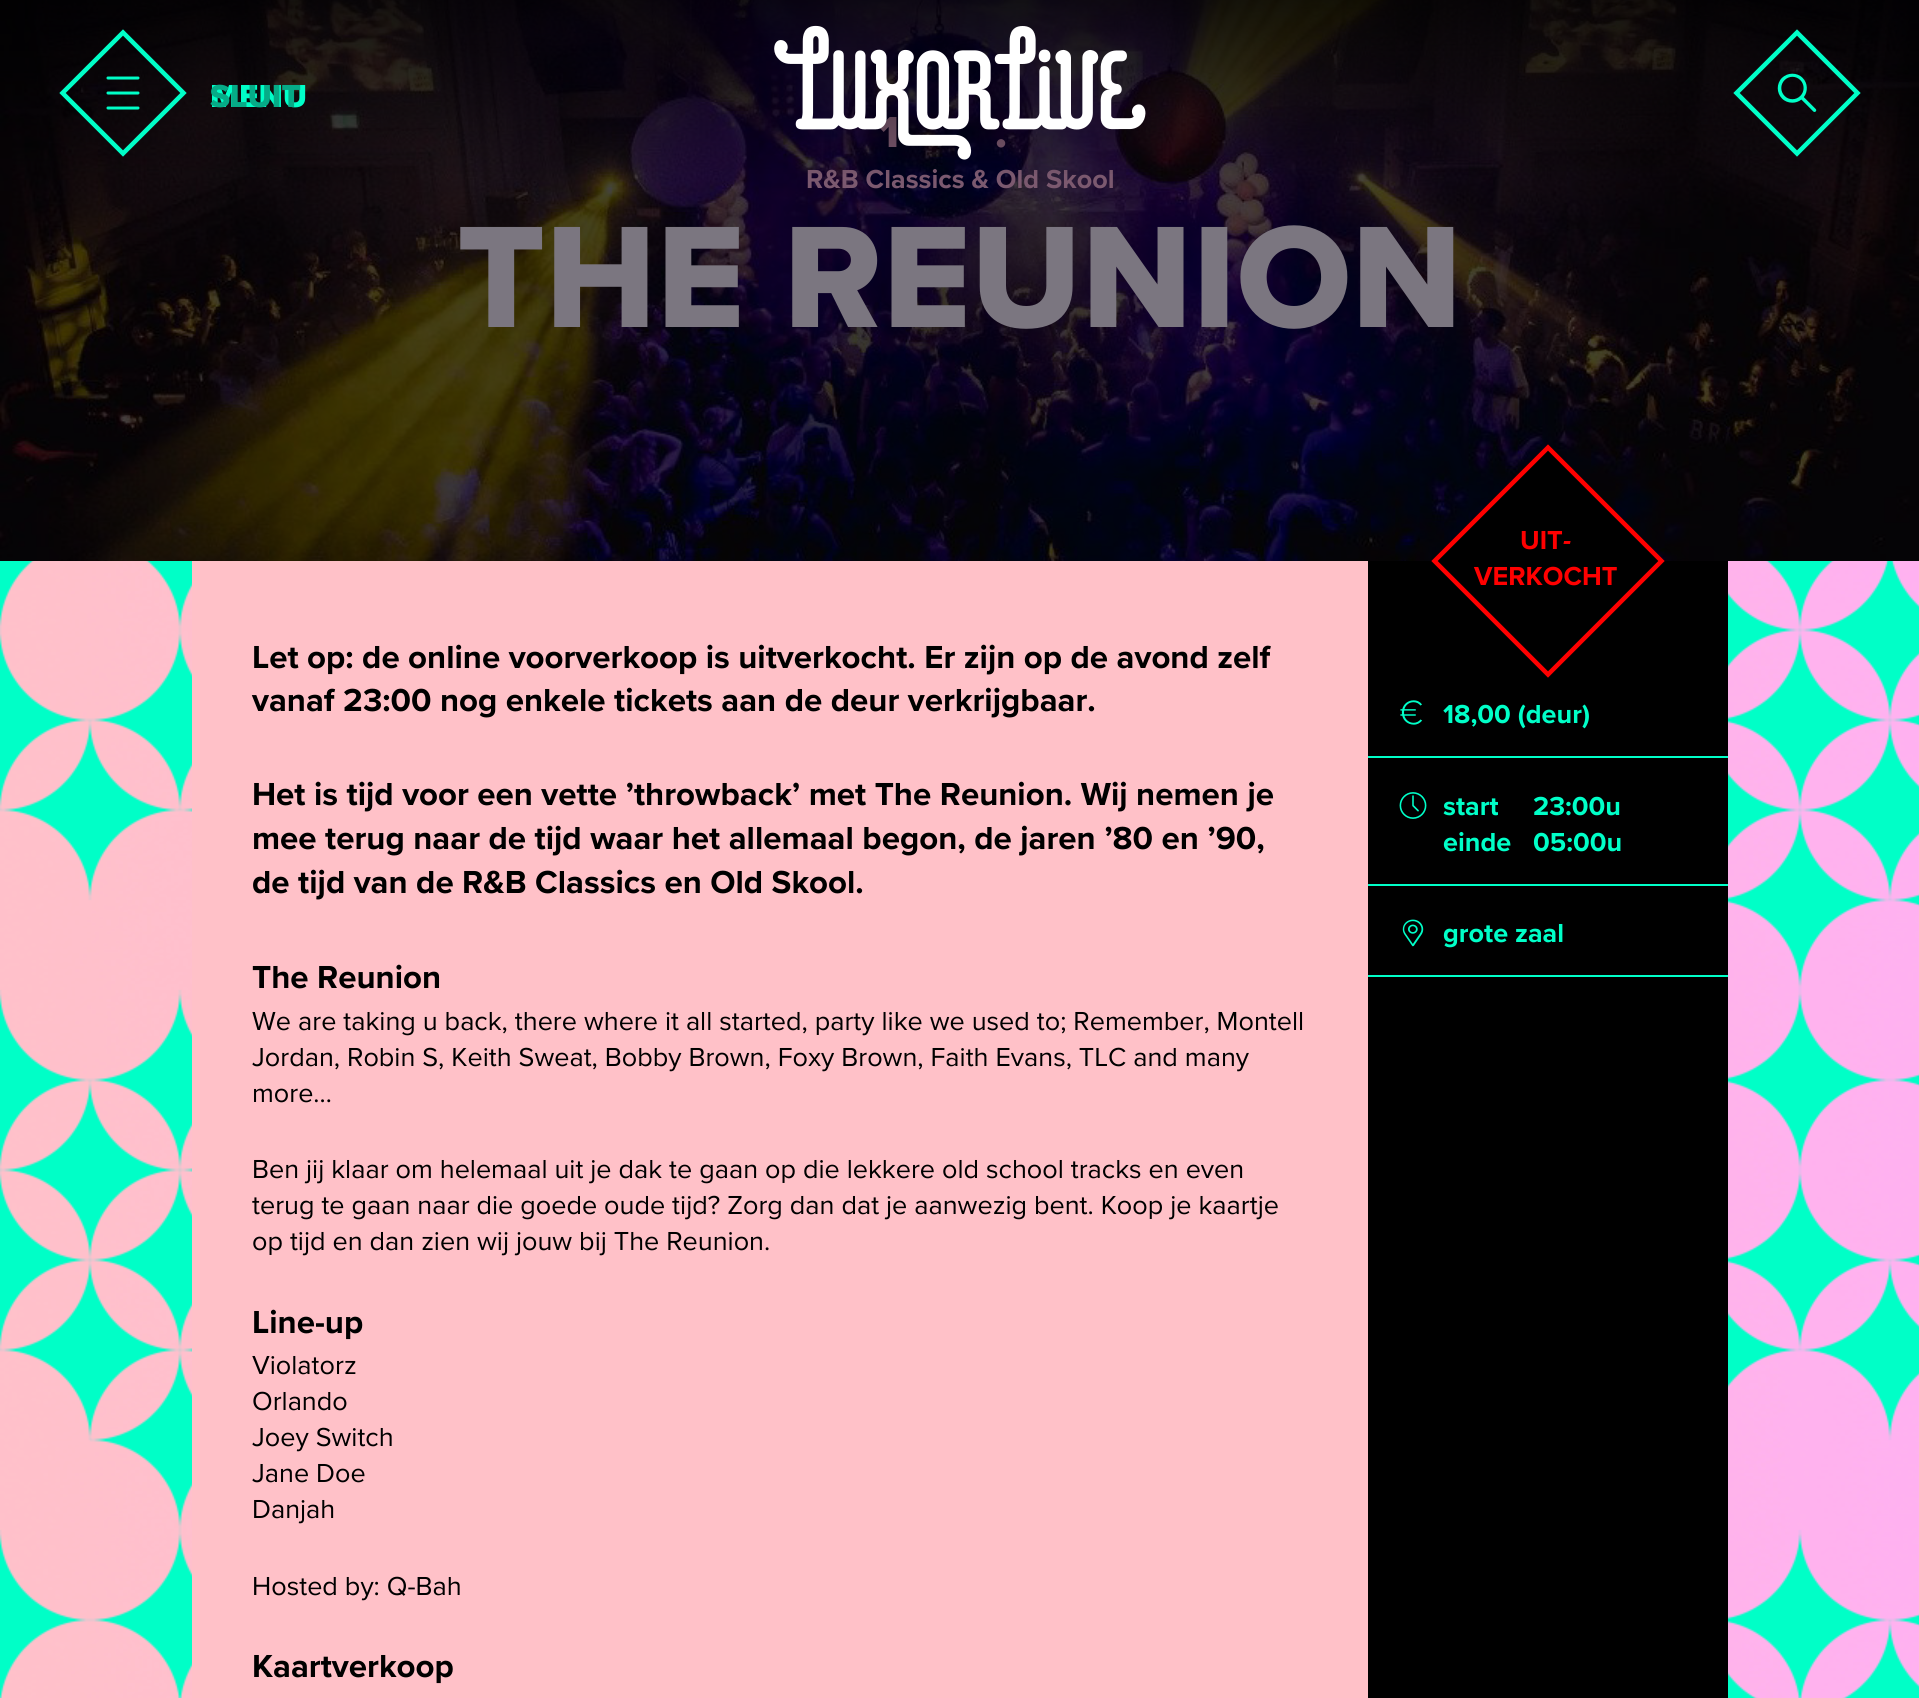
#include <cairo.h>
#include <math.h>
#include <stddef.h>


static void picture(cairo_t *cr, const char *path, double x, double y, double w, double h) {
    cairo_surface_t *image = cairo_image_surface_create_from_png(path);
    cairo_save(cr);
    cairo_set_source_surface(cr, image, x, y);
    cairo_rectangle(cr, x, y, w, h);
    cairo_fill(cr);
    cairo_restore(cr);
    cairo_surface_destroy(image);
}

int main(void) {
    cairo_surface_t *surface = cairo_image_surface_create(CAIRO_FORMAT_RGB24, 1919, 1698);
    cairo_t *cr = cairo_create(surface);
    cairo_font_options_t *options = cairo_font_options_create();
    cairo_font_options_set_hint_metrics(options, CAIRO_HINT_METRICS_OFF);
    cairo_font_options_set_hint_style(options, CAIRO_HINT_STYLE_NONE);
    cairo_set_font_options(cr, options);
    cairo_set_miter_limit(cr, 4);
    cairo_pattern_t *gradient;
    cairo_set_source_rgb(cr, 0, 0, 0);
    cairo_paint(cr);
    picture(cr, "img4.png", 0, 0, 1919, 561);
    gradient = cairo_pattern_create_radial(960, 341, 0, 960, 341, 530);
    cairo_pattern_add_color_stop_rgba(gradient, 0, 0, 0, 0, 0.22);
    cairo_pattern_add_color_stop_rgba(gradient, 0.35, 0, 0, 0, 0.11);
    cairo_pattern_add_color_stop_rgba(gradient, 0.59, 0, 0, 0, 0);
    cairo_pattern_add_color_stop_rgba(gradient, 1, 0, 0, 0, 0);
    cairo_set_source(cr, gradient);
    cairo_pattern_destroy(gradient);
    cairo_rectangle(cr, 697, 81, 531, 480);
    cairo_fill(cr);
    cairo_select_font_face(cr, "Proxima Nova ExtraBold", CAIRO_FONT_SLANT_NORMAL, CAIRO_FONT_WEIGHT_NORMAL);
    cairo_set_font_size(cr, 45);
    cairo_set_source_rgb(cr, 0.482, 0.349, 0.435);
    cairo_move_to(cr, 879, 147);
    cairo_show_text(cr, "1");
    cairo_move_to(cr, 995, 147);
    cairo_show_text(cr, ".");
    cairo_select_font_face(cr, "Proxima Nova", CAIRO_FONT_SLANT_NORMAL, CAIRO_FONT_WEIGHT_BOLD);
    cairo_set_font_size(cr, 27);
    cairo_move_to(cr, 806, 188);
    cairo_show_text(cr, "R&B Classics & Old Skool");
    gradient = cairo_pattern_create_linear(960, 0, 960, 180);
    cairo_pattern_add_color_stop_rgba(gradient, 0, 0, 0, 0, 0.7);
    cairo_pattern_add_color_stop_rgba(gradient, 1, 0, 0, 0, 0);
    cairo_set_source(cr, gradient);
    cairo_pattern_destroy(gradient);
    cairo_rectangle(cr, 0, 0, 1919, 174);
    cairo_fill(cr);
    cairo_new_path(cr);
    cairo_move_to(cr, 123, 32.5);
    cairo_line_to(cr, 183.5, 93);
    cairo_line_to(cr, 123, 153.5);
    cairo_line_to(cr, 62.5, 93);
    cairo_close_path(cr);
    cairo_set_source_rgb(cr, 0, 1, 0.784);
    cairo_set_line_width(cr, 4.5);
    cairo_stroke(cr);
    picture(cr, "img1.png", 106, 76, 34, 34);
    cairo_select_font_face(cr, "Proxima Nova ExtraBold", CAIRO_FONT_SLANT_NORMAL, CAIRO_FONT_WEIGHT_NORMAL);
    cairo_set_font_size(cr, 33);
    cairo_move_to(cr, 210, 107);
    cairo_show_text(cr, "MENU");
    cairo_set_source_rgb(cr, 0.024, 0.671, 0.529);
    cairo_move_to(cr, 210, 107);
    cairo_show_text(cr, "SLUIT");
    picture(cr, "img2.png", 774, 25, 372, 135);
    cairo_new_path(cr);
    cairo_move_to(cr, 1797, 32.5);
    cairo_line_to(cr, 1857.5, 93);
    cairo_line_to(cr, 1797, 153.5);
    cairo_line_to(cr, 1736.5, 93);
    cairo_close_path(cr);
    cairo_set_source_rgb(cr, 0, 1, 0.784);
    cairo_stroke(cr);
    picture(cr, "img3.png", 1777, 73, 40, 39);
    cairo_set_font_size(cr, 150);
    cairo_set_source_rgb(cr, 0.482, 0.463, 0.502);
    cairo_move_to(cr, 457, 327);
    cairo_show_text(cr, "THE REUNION");
    picture(cr, "img8.png", 0, 561, 1919, 1137);
    cairo_set_source_rgb(cr, 1, 0.757, 0.784);
    cairo_rectangle(cr, 192, 561, 1176, 1137);
    cairo_fill(cr);
    cairo_select_font_face(cr, "Proxima Nova", CAIRO_FONT_SLANT_NORMAL, CAIRO_FONT_WEIGHT_BOLD);
    cairo_set_font_size(cr, 33);
    cairo_set_source_rgb(cr, 0, 0, 0);
    cairo_move_to(cr, 252, 668);
    cairo_show_text(cr, "Let op: de online voorverkoop is uitverkocht. Er zijn op de avond zelf");
    cairo_move_to(cr, 252, 711);
    cairo_show_text(cr, "vanaf 23:00 nog enkele tickets aan de deur verkrijgbaar.");
    cairo_move_to(cr, 252, 805);
    cairo_show_text(cr, "Het is tijd voor een vette ’throwback’ met The Reunion. Wij nemen je");
    cairo_move_to(cr, 252, 849);
    cairo_show_text(cr, "mee terug naar de tijd waar het allemaal begon, de jaren ’80 en ’90,");
    cairo_move_to(cr, 252, 893);
    cairo_show_text(cr, "de tijd van de R&B Classics en Old Skool.");
    cairo_move_to(cr, 252, 988);
    cairo_show_text(cr, "The Reunion");
    cairo_select_font_face(cr, "Proxima Nova", CAIRO_FONT_SLANT_NORMAL, CAIRO_FONT_WEIGHT_NORMAL);
    cairo_set_font_size(cr, 27);
    cairo_move_to(cr, 252, 1030);
    cairo_show_text(cr, "We are taking u back, there where it all started, party like we used to; Remember, Montell");
    cairo_move_to(cr, 252, 1066);
    cairo_show_text(cr, "Jordan, Robin S, Keith Sweat, Bobby Brown, Foxy Brown, Faith Evans, TLC and many");
    cairo_move_to(cr, 252, 1102);
    cairo_show_text(cr, "more…");
    cairo_move_to(cr, 252, 1178);
    cairo_show_text(cr, "Ben jij klaar om helemaal uit je dak te gaan op die lekkere old school tracks en even");
    cairo_move_to(cr, 252, 1214);
    cairo_show_text(cr, "terug te gaan naar die goede oude tijd? Zorg dan dat je aanwezig bent. Koop je kaartje");
    cairo_move_to(cr, 252, 1250);
    cairo_show_text(cr, "op tijd en dan zien wij jouw bij The Reunion.");
    cairo_select_font_face(cr, "Proxima Nova", CAIRO_FONT_SLANT_NORMAL, CAIRO_FONT_WEIGHT_BOLD);
    cairo_set_font_size(cr, 33);
    cairo_move_to(cr, 252, 1333);
    cairo_show_text(cr, "Line-up");
    cairo_select_font_face(cr, "Proxima Nova", CAIRO_FONT_SLANT_NORMAL, CAIRO_FONT_WEIGHT_NORMAL);
    cairo_set_font_size(cr, 27);
    cairo_move_to(cr, 252, 1374);
    cairo_show_text(cr, "Violatorz");
    cairo_move_to(cr, 252, 1410);
    cairo_show_text(cr, "Orlando");
    cairo_move_to(cr, 252, 1446);
    cairo_show_text(cr, "Joey Switch");
    cairo_move_to(cr, 252, 1482);
    cairo_show_text(cr, "Jane Doe");
    cairo_move_to(cr, 252, 1518);
    cairo_show_text(cr, "Danjah");
    cairo_move_to(cr, 252, 1595);
    cairo_show_text(cr, "Hosted by: Q-Bah");
    cairo_select_font_face(cr, "Proxima Nova", CAIRO_FONT_SLANT_NORMAL, CAIRO_FONT_WEIGHT_BOLD);
    cairo_set_font_size(cr, 33);
    cairo_move_to(cr, 252, 1677);
    cairo_show_text(cr, "Kaartverkoop");
    cairo_rectangle(cr, 1368, 561, 360, 1137);
    cairo_fill(cr);
    cairo_new_path(cr);
    cairo_move_to(cr, 1548, 444);
    cairo_line_to(cr, 1665, 561);
    cairo_line_to(cr, 1548, 678);
    cairo_line_to(cr, 1431, 561);
    cairo_close_path(cr);
    cairo_fill(cr);
    cairo_new_path(cr);
    cairo_move_to(cr, 1548, 447.5);
    cairo_line_to(cr, 1661.5, 561);
    cairo_line_to(cr, 1548, 674.5);
    cairo_line_to(cr, 1434.5, 561);
    cairo_close_path(cr);
    cairo_set_source_rgb(cr, 1, 0, 0);
    cairo_stroke(cr);
    cairo_set_font_size(cr, 27);
    cairo_move_to(cr, 1520, 549);
    cairo_show_text(cr, "UIT");
    cairo_select_font_face(cr, "Proxima Nova", CAIRO_FONT_SLANT_ITALIC, CAIRO_FONT_WEIGHT_BOLD);
    cairo_move_to(cr, 1563, 549);
    cairo_show_text(cr, "-");
    cairo_select_font_face(cr, "Proxima Nova", CAIRO_FONT_SLANT_NORMAL, CAIRO_FONT_WEIGHT_BOLD);
    cairo_move_to(cr, 1474, 585);
    cairo_show_text(cr, "VERKOCHT");
    cairo_set_source_rgb(cr, 0, 1, 0.784);
    cairo_rectangle(cr, 1368, 756, 360, 2);
    cairo_fill(cr);
    picture(cr, "img5.png", 1400, 700, 23, 25);
    cairo_move_to(cr, 1443, 723);
    cairo_show_text(cr, "18,00 (deur)");
    cairo_rectangle(cr, 1368, 884, 360, 2);
    cairo_fill(cr);
    picture(cr, "img6.png", 1399, 792, 28, 27);
    cairo_move_to(cr, 1443, 815);
    cairo_show_text(cr, "start");
    cairo_move_to(cr, 1533, 815);
    cairo_show_text(cr, "23:00u");
    cairo_move_to(cr, 1443, 851);
    cairo_show_text(cr, "einde");
    cairo_move_to(cr, 1533, 851);
    cairo_show_text(cr, "05:00u");
    cairo_rectangle(cr, 1368, 975, 360, 2);
    cairo_fill(cr);
    picture(cr, "img7.png", 1402, 919, 22, 28);
    cairo_move_to(cr, 1443, 942);
    cairo_show_text(cr, "grote zaal");
    cairo_surface_write_to_png(surface, "page.png");
    cairo_font_options_destroy(options);
    cairo_destroy(cr);
    cairo_surface_destroy(surface);
    return 0;
}
